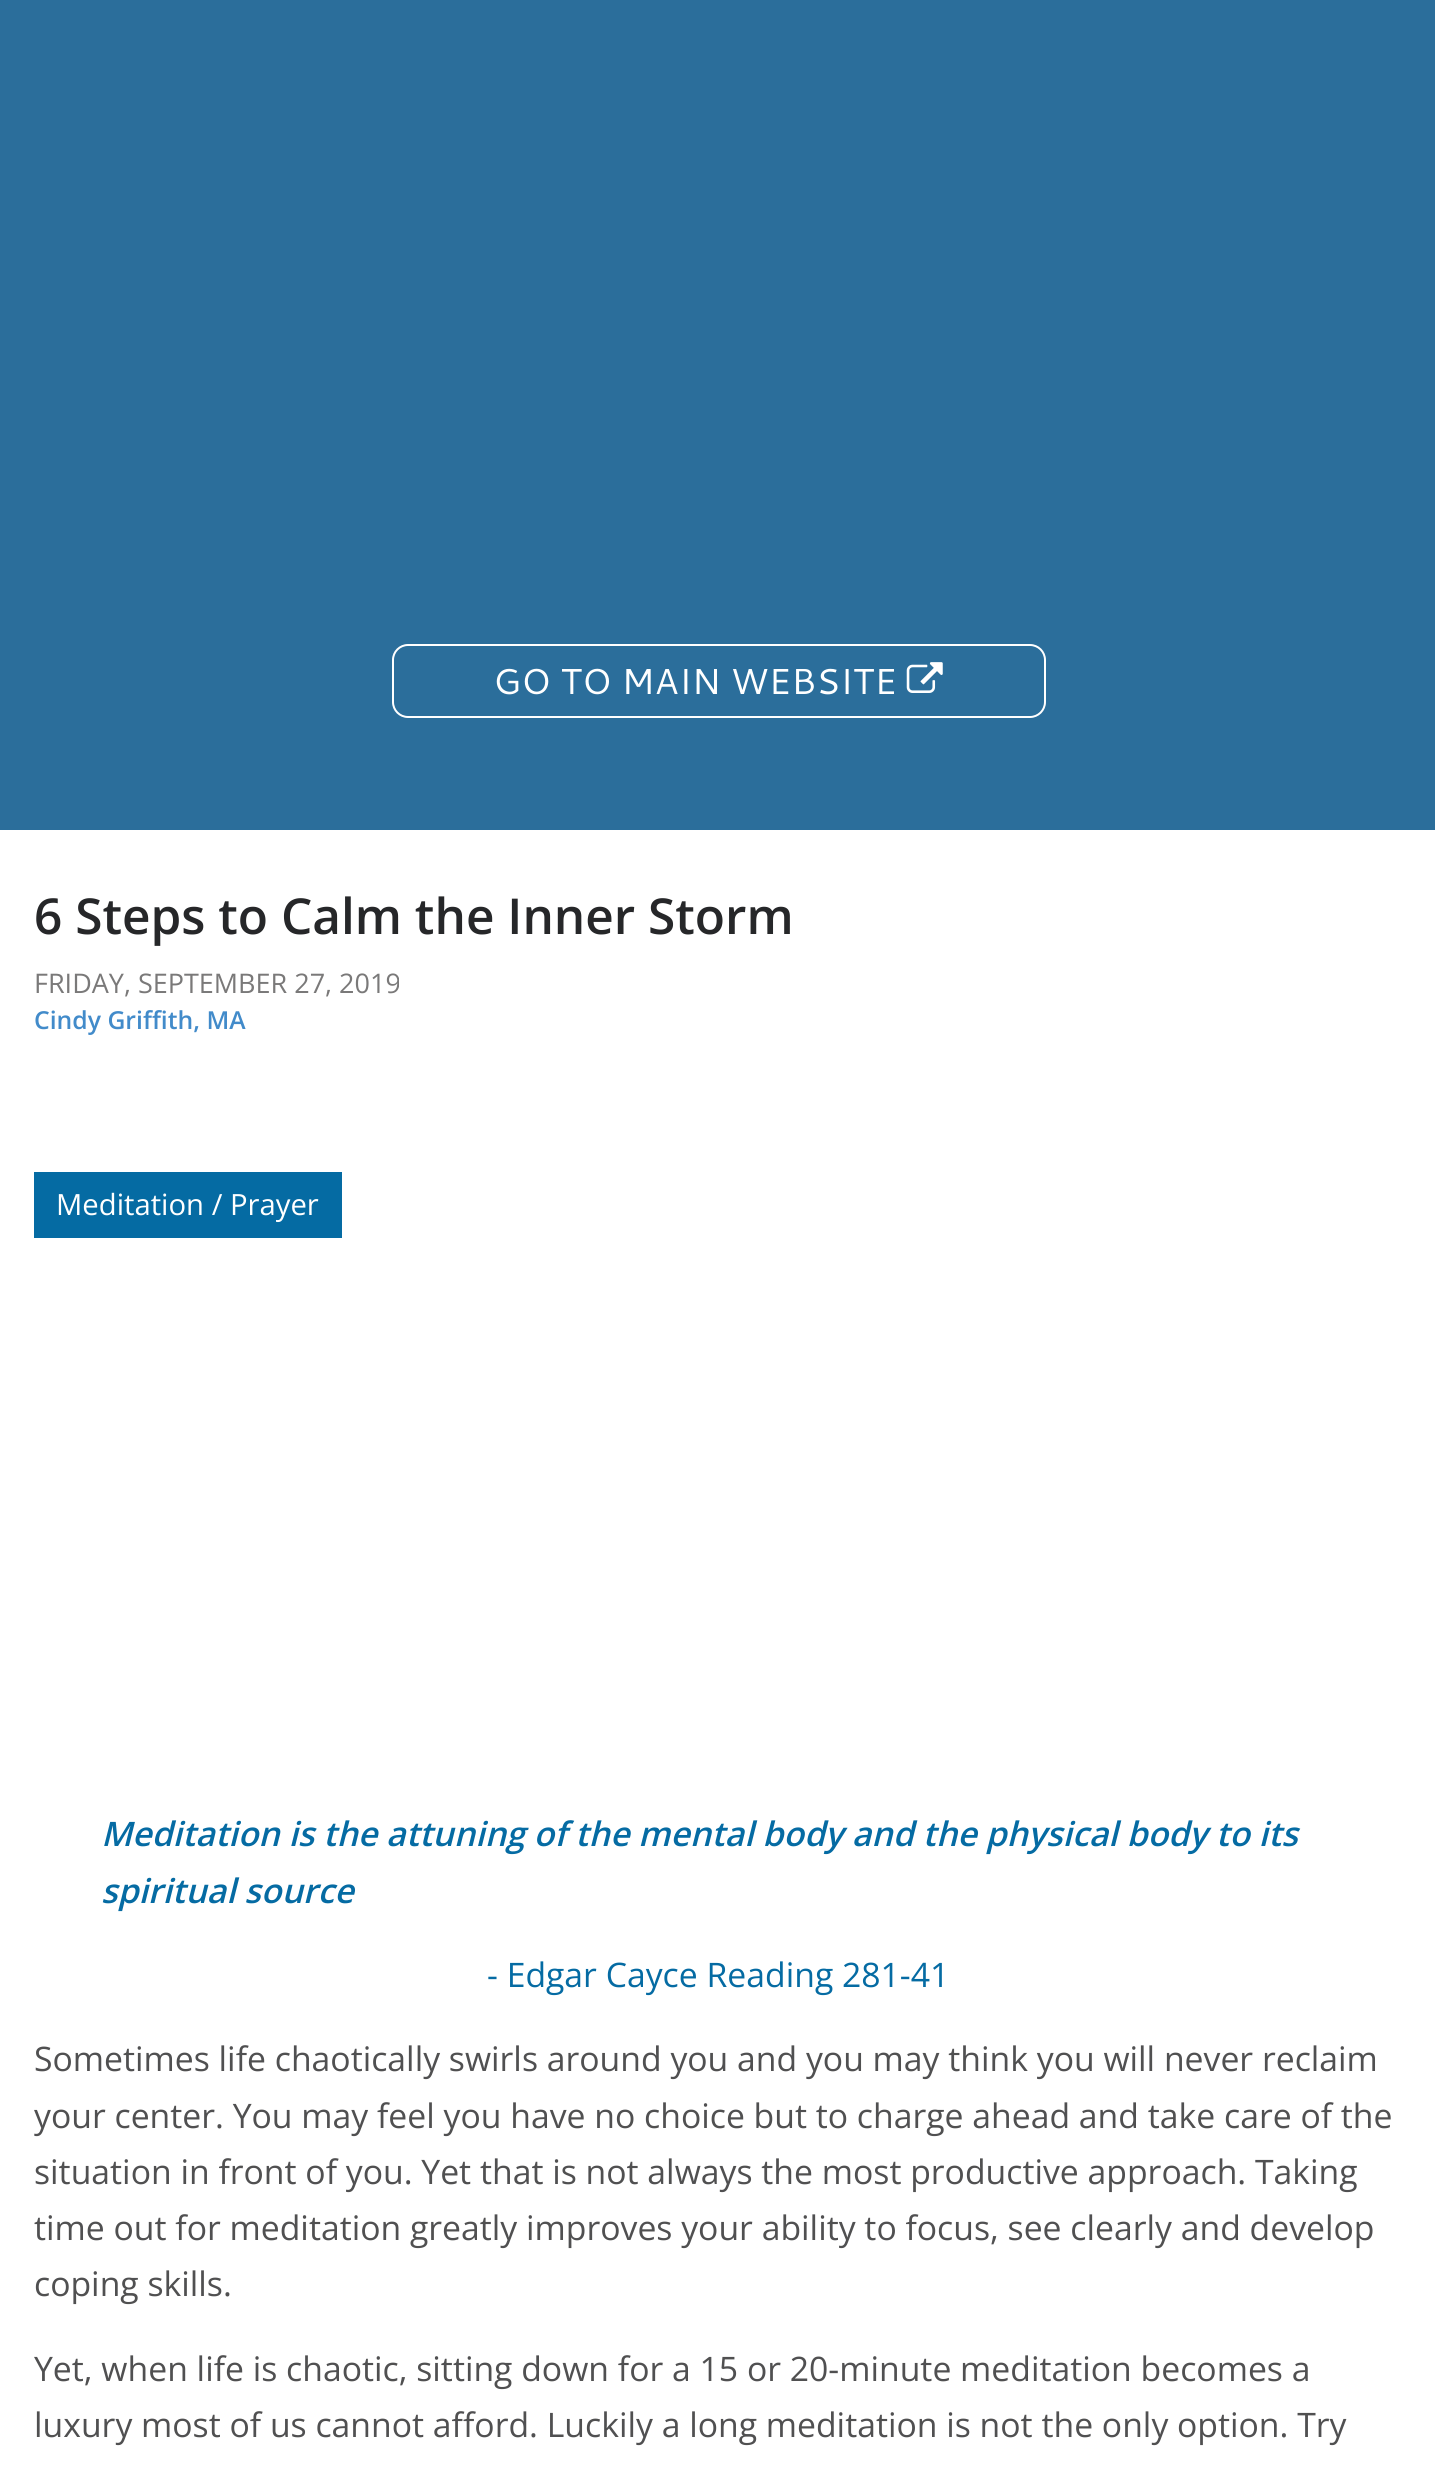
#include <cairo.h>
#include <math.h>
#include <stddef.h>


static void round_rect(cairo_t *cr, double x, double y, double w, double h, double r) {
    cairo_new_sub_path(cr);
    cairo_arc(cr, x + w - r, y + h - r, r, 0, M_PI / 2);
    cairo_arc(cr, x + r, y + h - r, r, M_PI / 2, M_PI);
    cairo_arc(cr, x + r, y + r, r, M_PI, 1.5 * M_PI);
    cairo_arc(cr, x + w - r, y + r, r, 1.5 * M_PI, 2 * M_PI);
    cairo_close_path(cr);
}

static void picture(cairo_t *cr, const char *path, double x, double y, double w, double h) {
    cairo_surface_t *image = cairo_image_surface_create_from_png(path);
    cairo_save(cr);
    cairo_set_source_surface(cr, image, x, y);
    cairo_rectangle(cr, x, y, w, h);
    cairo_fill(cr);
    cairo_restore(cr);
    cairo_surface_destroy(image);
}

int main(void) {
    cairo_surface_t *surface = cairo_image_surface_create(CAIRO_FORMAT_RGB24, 1435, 2484);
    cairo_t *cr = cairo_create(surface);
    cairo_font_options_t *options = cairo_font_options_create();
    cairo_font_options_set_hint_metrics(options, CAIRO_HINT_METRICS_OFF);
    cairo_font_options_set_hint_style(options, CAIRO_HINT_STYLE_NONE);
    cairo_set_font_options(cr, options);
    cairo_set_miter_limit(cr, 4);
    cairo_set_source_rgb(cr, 1, 1, 1);
    cairo_paint(cr);
    cairo_set_source_rgb(cr, 0.169, 0.431, 0.608);
    cairo_rectangle(cr, 0, 0, 1435, 830);
    cairo_fill(cr);
    round_rect(cr, 393, 645, 652, 72, 15);
    cairo_set_source_rgb(cr, 1, 1, 1);
    cairo_stroke(cr);
    cairo_select_font_face(cr, "Cantarell", CAIRO_FONT_SLANT_NORMAL, CAIRO_FONT_WEIGHT_NORMAL);
    cairo_set_font_size(cr, 36);
    cairo_move_to(cr, 493, 694);
    cairo_show_text(cr, "GO TO MAIN WEBSITE");
    picture(cr, "img1.png", 906, 662, 37, 31);
    cairo_select_font_face(cr, "Open Sans SemiBold", CAIRO_FONT_SLANT_NORMAL, CAIRO_FONT_WEIGHT_NORMAL);
    cairo_set_font_size(cr, 49.5);
    cairo_set_source_rgb(cr, 0.149, 0.153, 0.161);
    cairo_move_to(cr, 34, 934);
    cairo_show_text(cr, "6 Steps to Calm the Inner Storm");
    cairo_select_font_face(cr, "Open Sans", CAIRO_FONT_SLANT_NORMAL, CAIRO_FONT_WEIGHT_NORMAL);
    cairo_set_font_size(cr, 27);
    cairo_set_source_rgb(cr, 0.478, 0.475, 0.475);
    cairo_move_to(cr, 34, 993);
    cairo_show_text(cr, "FRIDAY, SEPTEMBER 27, 2019");
    cairo_select_font_face(cr, "Open Sans SemiBold", CAIRO_FONT_SLANT_NORMAL, CAIRO_FONT_WEIGHT_NORMAL);
    cairo_set_font_size(cr, 24.75);
    cairo_set_source_rgb(cr, 0.259, 0.545, 0.792);
    cairo_move_to(cr, 34, 1029);
    cairo_show_text(cr, "Cindy Griffith, MA");
    cairo_set_source_rgb(cr, 0.02, 0.42, 0.639);
    cairo_rectangle(cr, 34, 1172, 308, 66);
    cairo_fill(cr);
    cairo_select_font_face(cr, "Open Sans", CAIRO_FONT_SLANT_NORMAL, CAIRO_FONT_WEIGHT_NORMAL);
    cairo_set_font_size(cr, 29.25);
    cairo_set_source_rgb(cr, 1, 1, 1);
    cairo_move_to(cr, 56, 1215);
    cairo_show_text(cr, "Meditation / Prayer");
    cairo_select_font_face(cr, "Open Sans SemiBold", CAIRO_FONT_SLANT_ITALIC, CAIRO_FONT_WEIGHT_NORMAL);
    cairo_set_font_size(cr, 33.75);
    cairo_set_source_rgb(cr, 0.02, 0.42, 0.639);
    cairo_move_to(cr, 101, 1846);
    cairo_show_text(cr, "Meditation is the attuning of the mental body and the physical body to its");
    cairo_move_to(cr, 101, 1903);
    cairo_show_text(cr, "spiritual source");
    cairo_select_font_face(cr, "Open Sans", CAIRO_FONT_SLANT_NORMAL, CAIRO_FONT_WEIGHT_NORMAL);
    cairo_move_to(cr, 487, 1987);
    cairo_show_text(cr, "- Edgar Cayce Reading 281-41");
    cairo_set_source_rgb(cr, 0.314, 0.314, 0.318);
    cairo_move_to(cr, 34, 2071);
    cairo_show_text(cr, "Sometimes life chaotically swirls around you and you may think you will never reclaim");
    cairo_move_to(cr, 34, 2128);
    cairo_show_text(cr, "your center. You may feel you have no choice but to charge ahead and take care of the");
    cairo_move_to(cr, 34, 2184);
    cairo_show_text(cr, "situation in front of you. Yet that is not always the most productive approach. Taking");
    cairo_move_to(cr, 34, 2240);
    cairo_show_text(cr, "time out for meditation greatly improves your ability to focus, see clearly and develop");
    cairo_move_to(cr, 34, 2296);
    cairo_show_text(cr, "coping skills.");
    cairo_move_to(cr, 34, 2381);
    cairo_show_text(cr, "Yet, when life is chaotic, sitting down for a 15 or 20-minute meditation becomes a");
    cairo_move_to(cr, 34, 2437);
    cairo_show_text(cr, "luxury most of us cannot afford. Luckily a long meditation is not the only option. Try");
    cairo_surface_write_to_png(surface, "page.png");
    cairo_font_options_destroy(options);
    cairo_destroy(cr);
    cairo_surface_destroy(surface);
    return 0;
}
